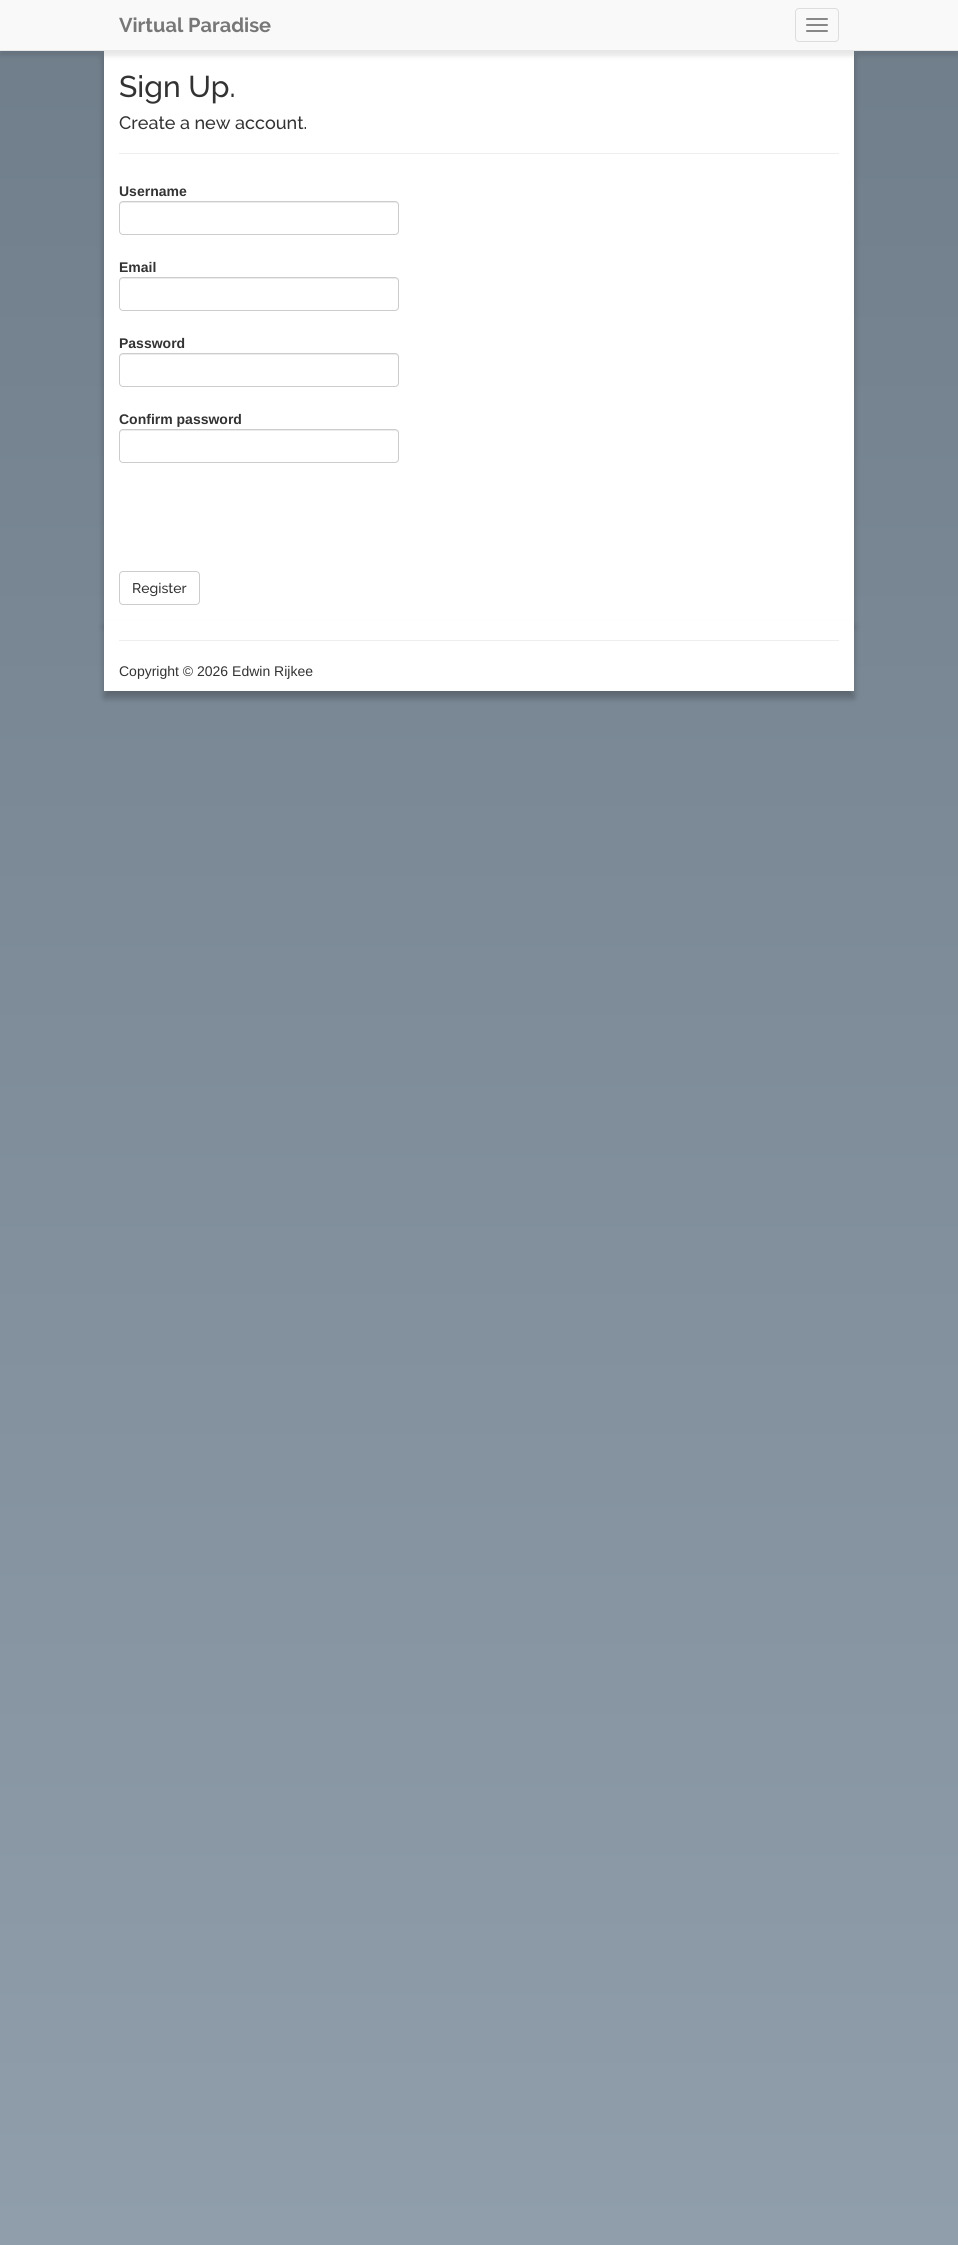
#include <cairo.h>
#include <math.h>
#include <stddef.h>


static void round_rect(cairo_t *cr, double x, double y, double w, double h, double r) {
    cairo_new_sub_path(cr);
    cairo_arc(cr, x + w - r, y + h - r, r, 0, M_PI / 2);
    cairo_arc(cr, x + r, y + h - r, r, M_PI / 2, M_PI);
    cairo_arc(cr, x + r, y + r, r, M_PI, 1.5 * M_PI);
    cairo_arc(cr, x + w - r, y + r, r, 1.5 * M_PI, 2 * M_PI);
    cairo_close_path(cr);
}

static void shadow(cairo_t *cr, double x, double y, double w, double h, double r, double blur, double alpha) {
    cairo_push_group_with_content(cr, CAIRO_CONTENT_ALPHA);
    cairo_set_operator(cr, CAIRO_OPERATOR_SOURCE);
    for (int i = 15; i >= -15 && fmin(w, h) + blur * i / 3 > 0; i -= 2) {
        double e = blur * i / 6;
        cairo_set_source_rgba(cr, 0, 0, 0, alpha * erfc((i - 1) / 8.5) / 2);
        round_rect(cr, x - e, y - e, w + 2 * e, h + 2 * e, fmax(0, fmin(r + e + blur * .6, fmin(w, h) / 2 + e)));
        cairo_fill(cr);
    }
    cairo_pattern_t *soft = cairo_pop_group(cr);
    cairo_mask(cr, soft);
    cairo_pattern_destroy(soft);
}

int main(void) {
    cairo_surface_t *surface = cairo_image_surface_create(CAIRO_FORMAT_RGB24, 958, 2245);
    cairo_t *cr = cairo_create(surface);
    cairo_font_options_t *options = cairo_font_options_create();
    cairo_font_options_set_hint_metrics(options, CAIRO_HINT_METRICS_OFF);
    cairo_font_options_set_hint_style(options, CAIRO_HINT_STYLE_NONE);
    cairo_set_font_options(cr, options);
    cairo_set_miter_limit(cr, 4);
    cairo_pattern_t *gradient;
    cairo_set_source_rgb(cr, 1, 1, 1);
    cairo_paint(cr);
    gradient = cairo_pattern_create_linear(479, 0, 479, 2245);
    cairo_pattern_add_color_stop_rgba(gradient, 0, 0.439, 0.494, 0.545, 1);
    cairo_pattern_add_color_stop_rgba(gradient, 1, 0.565, 0.62, 0.671, 1);
    cairo_set_source(cr, gradient);
    cairo_pattern_destroy(gradient);
    cairo_rectangle(cr, 0, 51, 958, 2194);
    cairo_fill(cr);
    cairo_set_source_rgb(cr, 0, 0, 0);
    shadow(cr, 104, 57, 750, 570, 0, 3.5, 0.25);
    cairo_set_source_rgb(cr, 1, 1, 1);
    cairo_rectangle(cr, 104, 51, 750, 569);
    cairo_fill(cr);
    cairo_set_source_rgb(cr, 0, 0, 0);
    shadow(cr, 0, 5, 958, 51, 0, 2.5, 0.1);
    cairo_set_source_rgb(cr, 0.973, 0.973, 0.973);
    cairo_rectangle(cr, 0, 0, 958, 50);
    cairo_fill(cr);
    cairo_set_source_rgb(cr, 0.906, 0.906, 0.906);
    cairo_rectangle(cr, 0, 50, 958, 1);
    cairo_fill(cr);
    cairo_select_font_face(cr, "Raleway", CAIRO_FONT_SLANT_NORMAL, CAIRO_FONT_WEIGHT_BOLD);
    cairo_set_font_size(cr, 20);
    cairo_set_source_rgb(cr, 0.467, 0.467, 0.467);
    cairo_move_to(cr, 119, 32);
    cairo_show_text(cr, "Virtual Paradise");
    round_rect(cr, 795.5, 8.5, 43, 33, 3.5);
    cairo_set_source_rgb(cr, 0.867, 0.867, 0.867);
    cairo_set_line_width(cr, 1);
    cairo_stroke(cr);
    cairo_set_source_rgb(cr, 0.533, 0.533, 0.533);
    round_rect(cr, 806, 18, 22, 2, 1);
    cairo_fill(cr);
    round_rect(cr, 806, 24, 22, 2, 1);
    cairo_fill(cr);
    round_rect(cr, 806, 30, 22, 2, 1);
    cairo_fill(cr);
    cairo_select_font_face(cr, "Raleway Medium", CAIRO_FONT_SLANT_NORMAL, CAIRO_FONT_WEIGHT_NORMAL);
    cairo_set_font_size(cr, 30);
    cairo_set_source_rgb(cr, 0.2, 0.2, 0.2);
    cairo_move_to(cr, 119, 97);
    cairo_show_text(cr, "Sign Up.");
    cairo_set_font_size(cr, 18);
    cairo_move_to(cr, 119, 129);
    cairo_show_text(cr, "Create a new account.");
    cairo_set_source_rgb(cr, 0.933, 0.933, 0.933);
    cairo_rectangle(cr, 119, 153, 720, 1);
    cairo_fill(cr);
    cairo_select_font_face(cr, "Liberation Sans", CAIRO_FONT_SLANT_NORMAL, CAIRO_FONT_WEIGHT_BOLD);
    cairo_set_font_size(cr, 14);
    cairo_set_source_rgb(cr, 0.2, 0.2, 0.2);
    cairo_move_to(cr, 119, 196);
    cairo_show_text(cr, "Username");
    cairo_set_source_rgb(cr, 0.925, 0.925, 0.925);
    cairo_new_path(cr);
    cairo_move_to(cr, 123, 203);
    cairo_line_to(cr, 395, 203);
    cairo_curve_to(cr, 397, 203, 398, 204, 398, 206);
    cairo_line_to(cr, 398, 205);
    cairo_curve_to(cr, 398, 203, 397, 202, 395, 202);
    cairo_line_to(cr, 123, 202);
    cairo_curve_to(cr, 121, 202, 120, 203, 120, 205);
    cairo_line_to(cr, 120, 206);
    cairo_curve_to(cr, 120, 204, 121, 203, 123, 203);
    cairo_close_path(cr);
    cairo_fill(cr);
    round_rect(cr, 119.5, 201.5, 279, 33, 3.5);
    cairo_set_source_rgb(cr, 0.8, 0.8, 0.8);
    cairo_stroke(cr);
    cairo_set_source_rgb(cr, 0.2, 0.2, 0.2);
    cairo_move_to(cr, 119, 272);
    cairo_show_text(cr, "Email");
    cairo_set_source_rgb(cr, 0.925, 0.925, 0.925);
    cairo_new_path(cr);
    cairo_move_to(cr, 123, 279);
    cairo_line_to(cr, 395, 279);
    cairo_curve_to(cr, 397, 279, 398, 280, 398, 282);
    cairo_line_to(cr, 398, 281);
    cairo_curve_to(cr, 398, 279, 397, 278, 395, 278);
    cairo_line_to(cr, 123, 278);
    cairo_curve_to(cr, 121, 278, 120, 279, 120, 281);
    cairo_line_to(cr, 120, 282);
    cairo_curve_to(cr, 120, 280, 121, 279, 123, 279);
    cairo_close_path(cr);
    cairo_fill(cr);
    round_rect(cr, 119.5, 277.5, 279, 33, 3.5);
    cairo_set_source_rgb(cr, 0.8, 0.8, 0.8);
    cairo_stroke(cr);
    cairo_set_source_rgb(cr, 0.2, 0.2, 0.2);
    cairo_move_to(cr, 119, 348);
    cairo_show_text(cr, "Password");
    cairo_set_source_rgb(cr, 0.925, 0.925, 0.925);
    cairo_new_path(cr);
    cairo_move_to(cr, 123, 355);
    cairo_line_to(cr, 395, 355);
    cairo_curve_to(cr, 397, 355, 398, 356, 398, 358);
    cairo_line_to(cr, 398, 357);
    cairo_curve_to(cr, 398, 355, 397, 354, 395, 354);
    cairo_line_to(cr, 123, 354);
    cairo_curve_to(cr, 121, 354, 120, 355, 120, 357);
    cairo_line_to(cr, 120, 358);
    cairo_curve_to(cr, 120, 356, 121, 355, 123, 355);
    cairo_close_path(cr);
    cairo_fill(cr);
    round_rect(cr, 119.5, 353.5, 279, 33, 3.5);
    cairo_set_source_rgb(cr, 0.8, 0.8, 0.8);
    cairo_stroke(cr);
    cairo_set_source_rgb(cr, 0.2, 0.2, 0.2);
    cairo_move_to(cr, 119, 424);
    cairo_show_text(cr, "Confirm password");
    cairo_set_source_rgb(cr, 0.925, 0.925, 0.925);
    cairo_new_path(cr);
    cairo_move_to(cr, 123, 431);
    cairo_line_to(cr, 395, 431);
    cairo_curve_to(cr, 397, 431, 398, 432, 398, 434);
    cairo_line_to(cr, 398, 433);
    cairo_curve_to(cr, 398, 431, 397, 430, 395, 430);
    cairo_line_to(cr, 123, 430);
    cairo_curve_to(cr, 121, 430, 120, 431, 120, 433);
    cairo_line_to(cr, 120, 434);
    cairo_curve_to(cr, 120, 432, 121, 431, 123, 431);
    cairo_close_path(cr);
    cairo_fill(cr);
    round_rect(cr, 119.5, 429.5, 279, 33, 3.5);
    cairo_set_source_rgb(cr, 0.8, 0.8, 0.8);
    cairo_stroke(cr);
    round_rect(cr, 119.5, 571.5, 80, 33, 3.5);
    cairo_stroke(cr);
    cairo_select_font_face(cr, "Raleway Medium", CAIRO_FONT_SLANT_NORMAL, CAIRO_FONT_WEIGHT_NORMAL);
    cairo_set_source_rgb(cr, 0.2, 0.2, 0.2);
    cairo_move_to(cr, 132, 593);
    cairo_show_text(cr, "Register");
    cairo_set_source_rgb(cr, 0, 0, 0);
    shadow(cr, 104, 627, 750, 71, 0, 3.5, 0.25);
    cairo_set_source_rgb(cr, 1, 1, 1);
    cairo_rectangle(cr, 104, 620, 750, 71);
    cairo_fill(cr);
    cairo_set_source_rgb(cr, 0.933, 0.933, 0.933);
    cairo_rectangle(cr, 119, 640, 720, 1);
    cairo_fill(cr);
    cairo_select_font_face(cr, "Liberation Sans", CAIRO_FONT_SLANT_NORMAL, CAIRO_FONT_WEIGHT_NORMAL);
    cairo_set_source_rgb(cr, 0.2, 0.2, 0.2);
    cairo_move_to(cr, 119, 676);
    cairo_show_text(cr, "Copyright © 2026 Edwin Rijkee");
    cairo_surface_write_to_png(surface, "page.png");
    cairo_font_options_destroy(options);
    cairo_destroy(cr);
    cairo_surface_destroy(surface);
    return 0;
}
